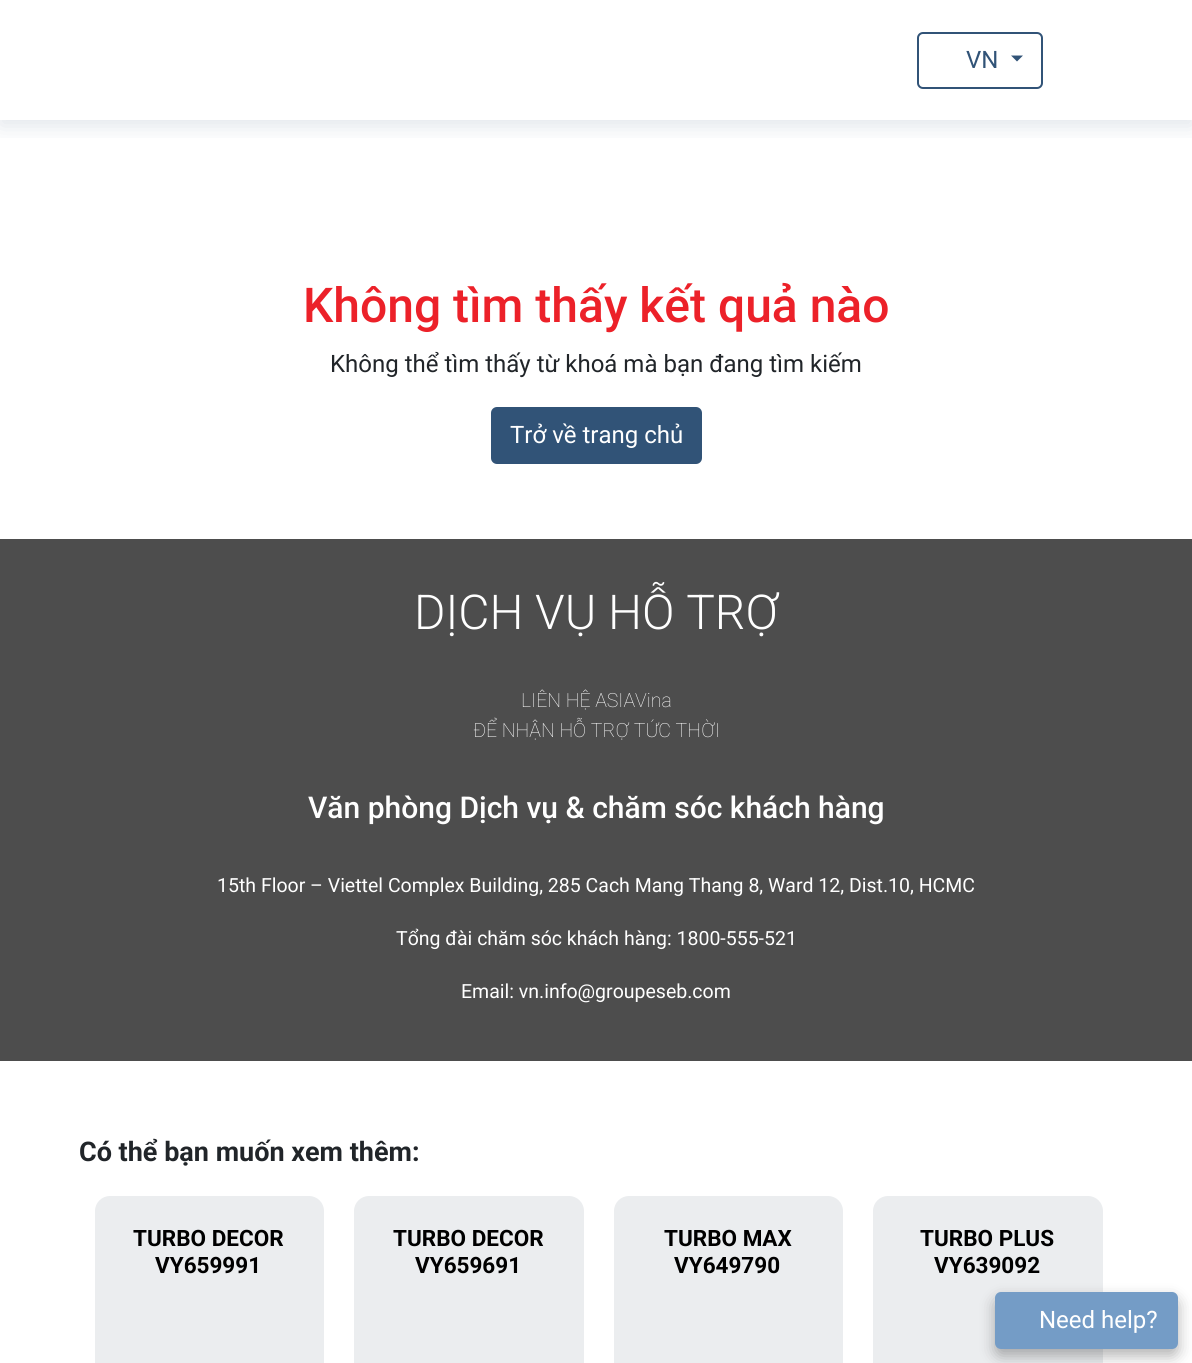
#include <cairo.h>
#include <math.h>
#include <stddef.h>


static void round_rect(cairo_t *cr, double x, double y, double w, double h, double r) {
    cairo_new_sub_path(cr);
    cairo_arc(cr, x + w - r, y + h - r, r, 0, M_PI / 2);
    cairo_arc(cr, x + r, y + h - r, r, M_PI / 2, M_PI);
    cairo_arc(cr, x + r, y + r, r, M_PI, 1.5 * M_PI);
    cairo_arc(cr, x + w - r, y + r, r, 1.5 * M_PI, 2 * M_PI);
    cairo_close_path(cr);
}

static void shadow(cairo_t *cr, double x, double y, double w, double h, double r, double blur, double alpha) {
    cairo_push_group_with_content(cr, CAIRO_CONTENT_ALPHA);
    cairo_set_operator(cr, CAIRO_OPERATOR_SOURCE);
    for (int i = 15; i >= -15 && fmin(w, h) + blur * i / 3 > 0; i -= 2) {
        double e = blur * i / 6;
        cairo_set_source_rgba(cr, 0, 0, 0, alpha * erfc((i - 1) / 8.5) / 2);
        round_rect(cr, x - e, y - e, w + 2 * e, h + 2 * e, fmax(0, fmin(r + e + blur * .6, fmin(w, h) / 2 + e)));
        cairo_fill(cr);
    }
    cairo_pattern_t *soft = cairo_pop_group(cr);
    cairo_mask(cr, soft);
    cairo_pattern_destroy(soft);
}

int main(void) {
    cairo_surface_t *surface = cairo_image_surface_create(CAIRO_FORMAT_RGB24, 1192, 1363);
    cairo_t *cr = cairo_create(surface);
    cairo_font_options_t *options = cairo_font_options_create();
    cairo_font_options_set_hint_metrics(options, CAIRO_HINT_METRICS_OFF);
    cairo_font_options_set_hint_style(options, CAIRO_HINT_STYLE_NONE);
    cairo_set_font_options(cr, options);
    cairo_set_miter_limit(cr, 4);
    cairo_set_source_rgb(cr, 1, 1, 1);
    cairo_paint(cr);
    cairo_save(cr);
    cairo_rectangle(cr, 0, 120, 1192, 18);
    cairo_clip(cr);
    cairo_set_source_rgb(cr, 0.192, 0.325, 0.467);
    shadow(cr, 0, 6, 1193, 120, 0, 11, 0.15);
    cairo_restore(cr);
    round_rect(cr, 918, 33, 124, 55, 5);
    cairo_set_source_rgb(cr, 0.192, 0.325, 0.467);
    cairo_stroke(cr);
    cairo_select_font_face(cr, "Roboto", CAIRO_FONT_SLANT_NORMAL, CAIRO_FONT_WEIGHT_NORMAL);
    cairo_set_font_size(cr, 24);
    cairo_move_to(cr, 966, 68);
    cairo_show_text(cr, "VN");
    cairo_new_path(cr);
    cairo_move_to(cr, 1011, 55.5);
    cairo_line_to(cr, 1023, 55.5);
    cairo_line_to(cr, 1017, 61.5);
    cairo_close_path(cr);
    cairo_fill(cr);
    cairo_select_font_face(cr, "Roboto Medium", CAIRO_FONT_SLANT_NORMAL, CAIRO_FONT_WEIGHT_NORMAL);
    cairo_set_font_size(cr, 48);
    cairo_set_source_rgb(cr, 0.925, 0.129, 0.161);
    cairo_move_to(cr, 303, 322);
    cairo_show_text(cr, "Không tìm thấy kết quả nào");
    cairo_select_font_face(cr, "Roboto", CAIRO_FONT_SLANT_NORMAL, CAIRO_FONT_WEIGHT_NORMAL);
    cairo_set_font_size(cr, 24);
    cairo_set_source_rgb(cr, 0.129, 0.145, 0.161);
    cairo_move_to(cr, 330, 372);
    cairo_show_text(cr, "Không thể tìm thấy từ khoá mà bạn đang tìm kiếm");
    cairo_set_source_rgb(cr, 0.192, 0.325, 0.467);
    round_rect(cr, 491, 407, 211, 57, 6);
    cairo_fill(cr);
    cairo_set_source_rgb(cr, 1, 1, 1);
    cairo_move_to(cr, 510, 443);
    cairo_show_text(cr, "Trở về trang chủ");
    cairo_set_source_rgb(cr, 0.302, 0.302, 0.302);
    cairo_rectangle(cr, 0, 539, 1192, 522);
    cairo_fill(cr);
    cairo_select_font_face(cr, "Roboto Light", CAIRO_FONT_SLANT_NORMAL, CAIRO_FONT_WEIGHT_NORMAL);
    cairo_set_font_size(cr, 48);
    cairo_set_source_rgb(cr, 1, 1, 1);
    cairo_move_to(cr, 414, 629);
    cairo_show_text(cr, "DỊCH VỤ HỖ TRỢ");
    cairo_select_font_face(cr, "Roboto Thin", CAIRO_FONT_SLANT_NORMAL, CAIRO_FONT_WEIGHT_NORMAL);
    cairo_set_font_size(cr, 19.5);
    cairo_move_to(cr, 521, 707);
    cairo_show_text(cr, "LIÊN HỆ ASIAVina");
    cairo_move_to(cr, 473, 737);
    cairo_show_text(cr, "ĐỂ NHẬN HỖ TRỢ TỨC THỜI");
    cairo_select_font_face(cr, "Roboto Medium", CAIRO_FONT_SLANT_NORMAL, CAIRO_FONT_WEIGHT_NORMAL);
    cairo_set_font_size(cr, 30);
    cairo_move_to(cr, 308, 818);
    cairo_show_text(cr, "Văn phòng Dịch vụ & chăm sóc khách hàng");
    cairo_select_font_face(cr, "Roboto", CAIRO_FONT_SLANT_NORMAL, CAIRO_FONT_WEIGHT_NORMAL);
    cairo_set_font_size(cr, 19.5);
    cairo_move_to(cr, 217, 892);
    cairo_show_text(cr, "15th Floor – Viettel Complex Building, 285 Cach Mang Thang 8, Ward 12, Dist.10, HCMC");
    cairo_move_to(cr, 396, 945);
    cairo_show_text(cr, "Tổng đài chăm sóc khách hàng: 1800-555-521");
    cairo_move_to(cr, 461, 998);
    cairo_show_text(cr, "Email: vn.info@groupeseb.com");
    cairo_select_font_face(cr, "Roboto", CAIRO_FONT_SLANT_NORMAL, CAIRO_FONT_WEIGHT_BOLD);
    cairo_set_font_size(cr, 27);
    cairo_set_source_rgb(cr, 0.129, 0.145, 0.161);
    cairo_move_to(cr, 79, 1161);
    cairo_show_text(cr, "Có thể bạn muốn xem thêm:");
    cairo_set_source_rgb(cr, 0.918, 0.929, 0.937);
    round_rect(cr, 95, 1196, 229, 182, 15);
    cairo_fill(cr);
    cairo_set_font_size(cr, 22.5);
    cairo_set_source_rgb(cr, 0, 0, 0);
    cairo_move_to(cr, 133, 1246);
    cairo_show_text(cr, "TURBO DECOR");
    cairo_move_to(cr, 155, 1273);
    cairo_show_text(cr, "VY659991");
    cairo_set_source_rgb(cr, 0.918, 0.929, 0.937);
    round_rect(cr, 354, 1196, 230, 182, 15);
    cairo_fill(cr);
    cairo_set_source_rgb(cr, 0, 0, 0);
    cairo_move_to(cr, 393, 1246);
    cairo_show_text(cr, "TURBO DECOR");
    cairo_move_to(cr, 415, 1273);
    cairo_show_text(cr, "VY659691");
    cairo_set_source_rgb(cr, 0.918, 0.929, 0.937);
    round_rect(cr, 614, 1196, 229, 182, 15);
    cairo_fill(cr);
    cairo_set_source_rgb(cr, 0, 0, 0);
    cairo_move_to(cr, 664, 1246);
    cairo_show_text(cr, "TURBO MAX");
    cairo_move_to(cr, 674, 1273);
    cairo_show_text(cr, "VY649790");
    cairo_set_source_rgb(cr, 0.918, 0.929, 0.937);
    round_rect(cr, 873, 1196, 230, 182, 15);
    cairo_fill(cr);
    cairo_set_source_rgb(cr, 0, 0, 0);
    cairo_move_to(cr, 920, 1246);
    cairo_show_text(cr, "TURBO PLUS");
    cairo_move_to(cr, 934, 1273);
    cairo_show_text(cr, "VY639092");
    cairo_set_source_rgb(cr, 0, 0, 0);
    shadow(cr, 995, 1299, 183, 57, 6, 7.5, 0.3);
    cairo_set_source_rgb(cr, 0.455, 0.612, 0.776);
    round_rect(cr, 995, 1292, 183, 57, 6);
    cairo_fill(cr);
    cairo_select_font_face(cr, "Roboto", CAIRO_FONT_SLANT_NORMAL, CAIRO_FONT_WEIGHT_NORMAL);
    cairo_set_font_size(cr, 24);
    cairo_set_source_rgb(cr, 1, 1, 1);
    cairo_move_to(cr, 1039, 1328);
    cairo_show_text(cr, "Need help?");
    cairo_surface_write_to_png(surface, "page.png");
    cairo_font_options_destroy(options);
    cairo_destroy(cr);
    cairo_surface_destroy(surface);
    return 0;
}
